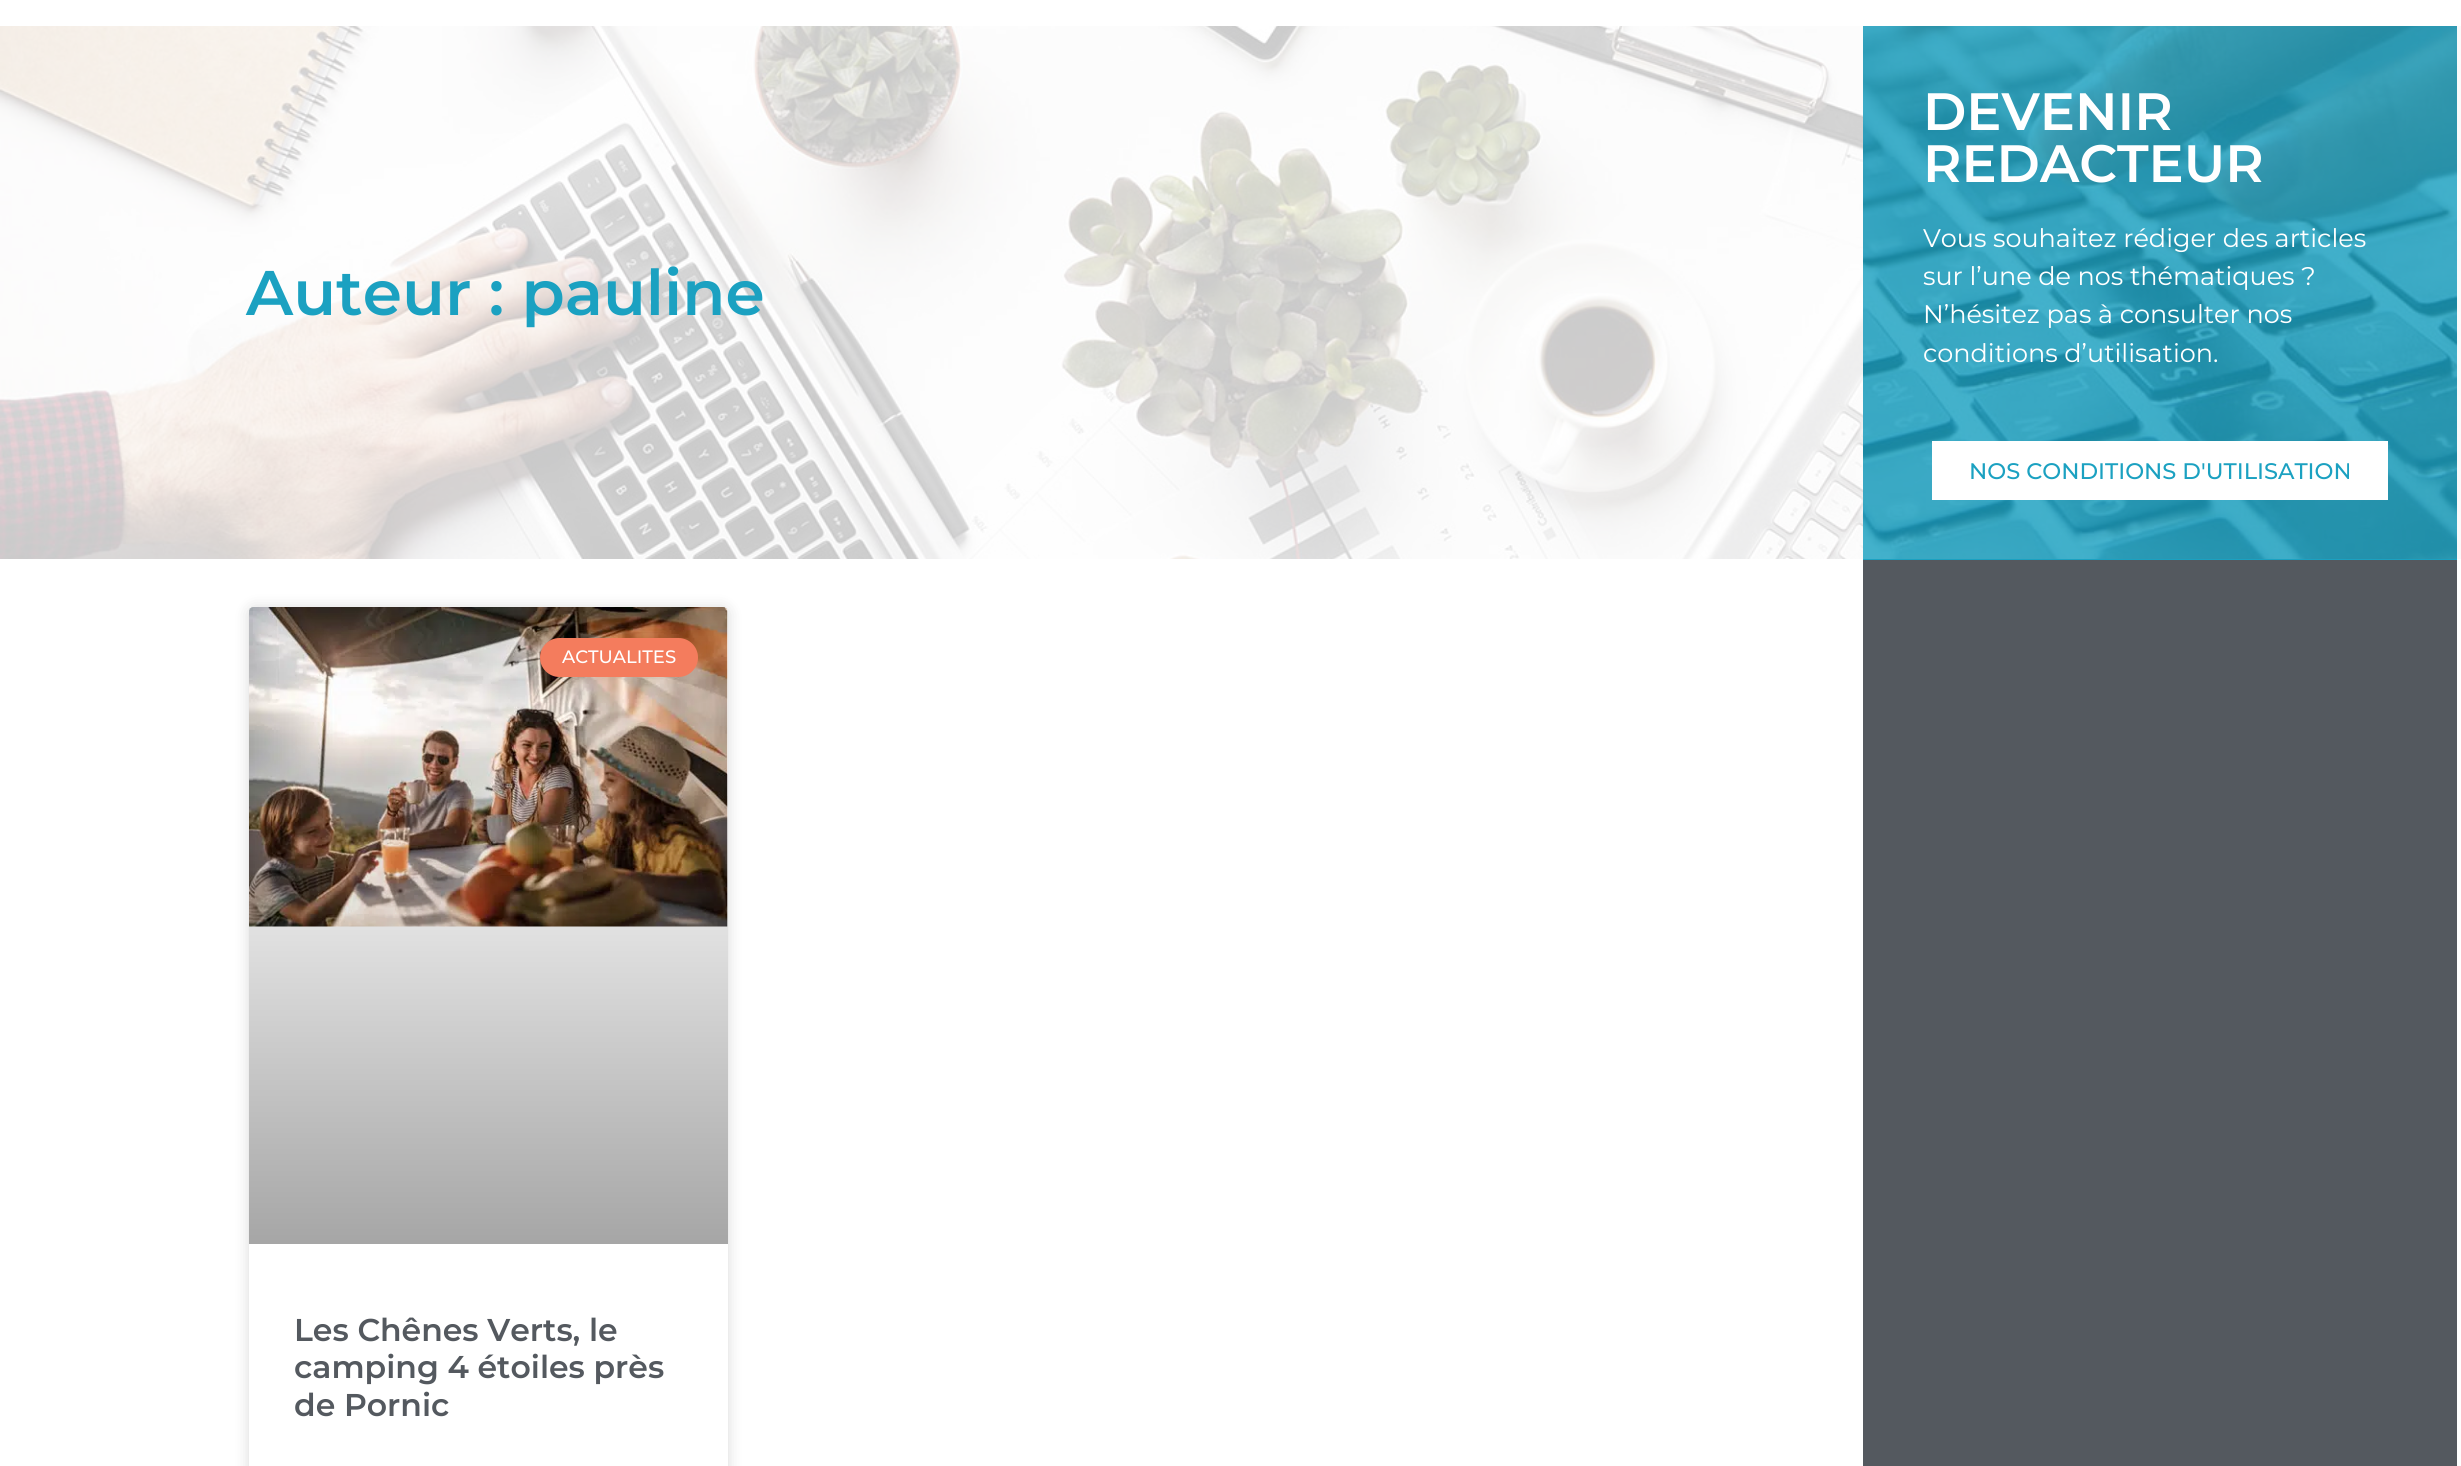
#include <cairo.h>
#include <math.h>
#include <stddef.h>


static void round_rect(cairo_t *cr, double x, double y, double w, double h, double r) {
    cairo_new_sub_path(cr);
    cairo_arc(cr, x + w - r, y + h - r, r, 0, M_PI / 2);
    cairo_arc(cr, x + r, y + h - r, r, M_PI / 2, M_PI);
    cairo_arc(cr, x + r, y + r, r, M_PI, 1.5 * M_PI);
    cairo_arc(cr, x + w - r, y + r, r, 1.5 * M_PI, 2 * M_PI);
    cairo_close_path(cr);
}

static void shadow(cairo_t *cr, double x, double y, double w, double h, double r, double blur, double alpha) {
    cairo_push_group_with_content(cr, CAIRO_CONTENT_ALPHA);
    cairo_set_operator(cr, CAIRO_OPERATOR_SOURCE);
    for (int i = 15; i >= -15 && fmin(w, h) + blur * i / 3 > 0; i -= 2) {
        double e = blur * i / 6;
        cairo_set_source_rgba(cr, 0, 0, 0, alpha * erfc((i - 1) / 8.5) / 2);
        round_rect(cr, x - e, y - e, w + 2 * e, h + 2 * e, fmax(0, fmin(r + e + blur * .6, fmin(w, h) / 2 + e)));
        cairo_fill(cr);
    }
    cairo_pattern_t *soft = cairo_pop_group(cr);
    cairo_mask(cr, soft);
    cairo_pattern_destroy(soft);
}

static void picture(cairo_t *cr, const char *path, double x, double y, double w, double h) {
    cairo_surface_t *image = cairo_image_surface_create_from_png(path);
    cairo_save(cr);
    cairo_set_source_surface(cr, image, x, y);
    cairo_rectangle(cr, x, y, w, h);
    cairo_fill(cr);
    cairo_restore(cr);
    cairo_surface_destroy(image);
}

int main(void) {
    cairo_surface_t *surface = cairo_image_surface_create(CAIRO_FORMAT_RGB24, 2461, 1466);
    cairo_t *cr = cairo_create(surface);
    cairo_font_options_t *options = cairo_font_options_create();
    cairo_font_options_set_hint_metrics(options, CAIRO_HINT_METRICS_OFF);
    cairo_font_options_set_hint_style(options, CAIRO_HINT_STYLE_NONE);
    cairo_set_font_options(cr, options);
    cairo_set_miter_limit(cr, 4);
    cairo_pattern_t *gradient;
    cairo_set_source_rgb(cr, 1, 1, 1);
    cairo_paint(cr);
    picture(cr, "img1.png", 0, 26, 2461, 533);
    cairo_select_font_face(cr, "Montserrat SemiBold", CAIRO_FONT_SLANT_NORMAL, CAIRO_FONT_WEIGHT_NORMAL);
    cairo_set_font_size(cr, 63);
    cairo_set_source_rgb(cr, 0.106, 0.631, 0.757);
    cairo_move_to(cr, 246, 315);
    cairo_show_text(cr, "Auteur : pauline");
    cairo_rectangle(cr, 1863, 559, 594, 1);
    cairo_fill(cr);
    picture(cr, "img2.png", 1863, 26, 594, 533);
    cairo_set_font_size(cr, 52.5);
    cairo_set_source_rgb(cr, 1, 1, 1);
    cairo_move_to(cr, 1923, 130);
    cairo_show_text(cr, "DEVENIR");
    cairo_move_to(cr, 1923, 182);
    cairo_show_text(cr, "REDACTEUR");
    cairo_select_font_face(cr, "Montserrat", CAIRO_FONT_SLANT_NORMAL, CAIRO_FONT_WEIGHT_NORMAL);
    cairo_set_font_size(cr, 25.5);
    cairo_move_to(cr, 1923, 247);
    cairo_show_text(cr, "Vous souhaitez rédiger des articles");
    cairo_move_to(cr, 1923, 285);
    cairo_show_text(cr, "sur l’une de nos thématiques ?");
    cairo_move_to(cr, 1923, 323);
    cairo_show_text(cr, "N’hésitez pas à consulter nos");
    cairo_move_to(cr, 1923, 362);
    cairo_show_text(cr, "conditions d’utilisation.");
    cairo_rectangle(cr, 1932, 441, 456, 59);
    cairo_fill(cr);
    cairo_select_font_face(cr, "Montserrat Medium", CAIRO_FONT_SLANT_NORMAL, CAIRO_FONT_WEIGHT_NORMAL);
    cairo_set_font_size(cr, 22.5);
    cairo_set_source_rgb(cr, 0.106, 0.631, 0.757);
    cairo_move_to(cr, 1969, 479);
    cairo_show_text(cr, "NOS CONDITIONS D'UTILISATION");
    cairo_set_source_rgb(cr, 0, 0, 0);
    shadow(cr, 249, 608, 479, 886, 5, 7.5, 0.15);
    cairo_set_source_rgb(cr, 1, 1, 1);
    round_rect(cr, 249, 608, 479, 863, 5);
    cairo_fill(cr);
    picture(cr, "img3.png", 249, 607, 479, 320);
    gradient = cairo_pattern_create_linear(488, 1244, 488, 608);
    cairo_pattern_add_color_stop_rgba(gradient, 0, 0, 0, 0, 0.35);
    cairo_pattern_add_color_stop_rgba(gradient, 0.75, 0, 0, 0, 0);
    cairo_set_source(cr, gradient);
    cairo_pattern_destroy(gradient);
    cairo_rectangle(cr, 249, 796, 479, 448);
    cairo_fill(cr);
    cairo_set_source_rgb(cr, 0.957, 0.486, 0.365);
    round_rect(cr, 540, 638, 158, 39, 19.5);
    cairo_fill(cr);
    cairo_set_font_size(cr, 18);
    cairo_set_source_rgb(cr, 1, 1, 1);
    cairo_move_to(cr, 562, 663);
    cairo_show_text(cr, "ACTUALITES");
    cairo_select_font_face(cr, "Montserrat SemiBold", CAIRO_FONT_SLANT_NORMAL, CAIRO_FONT_WEIGHT_NORMAL);
    cairo_set_font_size(cr, 31.5);
    cairo_set_source_rgb(cr, 0.329, 0.349, 0.373);
    cairo_move_to(cr, 294, 1341);
    cairo_show_text(cr, "Les Chênes Verts, le");
    cairo_move_to(cr, 294, 1378);
    cairo_show_text(cr, "camping 4 étoiles près");
    cairo_move_to(cr, 294, 1416);
    cairo_show_text(cr, "de Pornic");
    cairo_rectangle(cr, 1863, 560, 594, 906);
    cairo_fill(cr);
    cairo_surface_write_to_png(surface, "page.png");
    cairo_font_options_destroy(options);
    cairo_destroy(cr);
    cairo_surface_destroy(surface);
    return 0;
}
